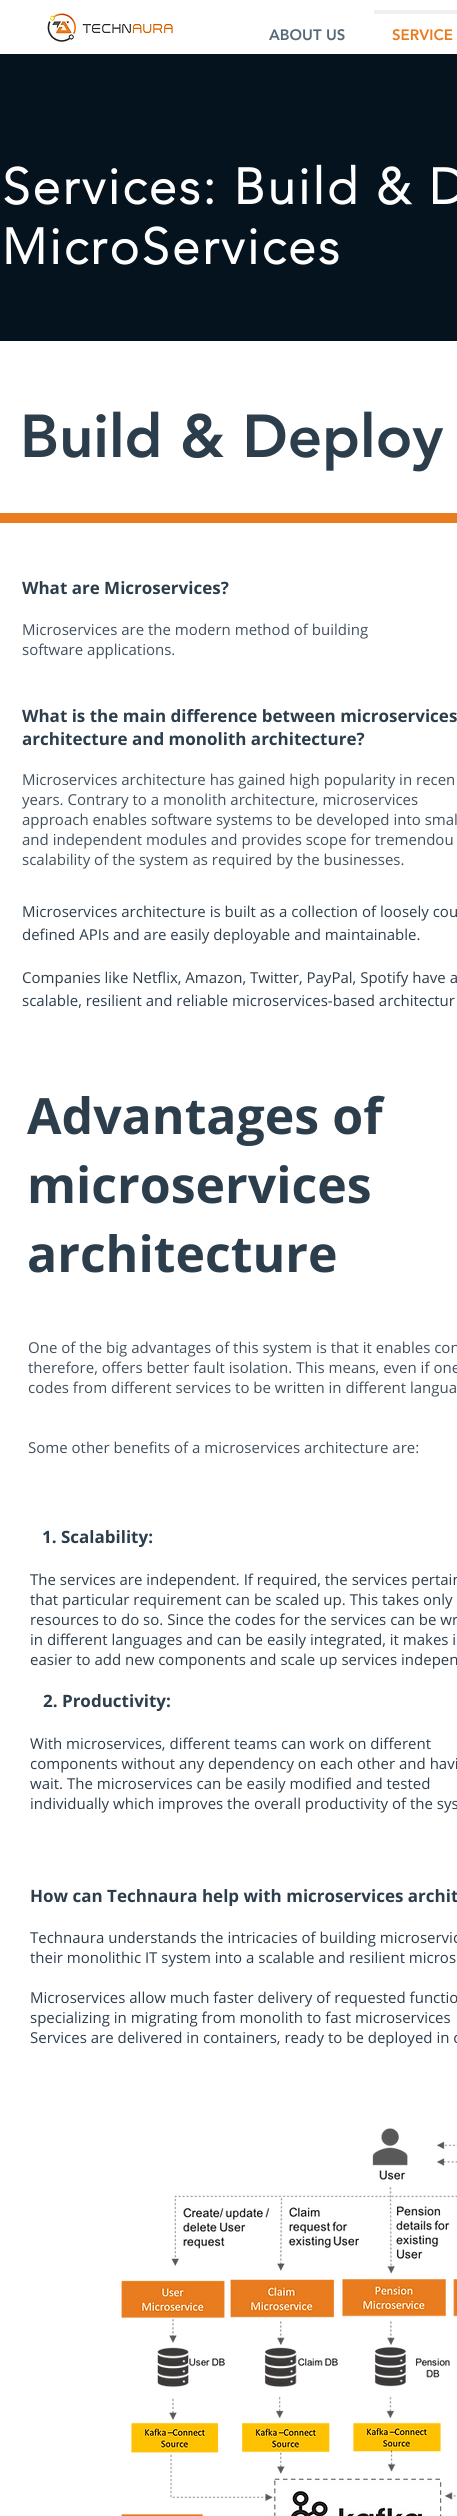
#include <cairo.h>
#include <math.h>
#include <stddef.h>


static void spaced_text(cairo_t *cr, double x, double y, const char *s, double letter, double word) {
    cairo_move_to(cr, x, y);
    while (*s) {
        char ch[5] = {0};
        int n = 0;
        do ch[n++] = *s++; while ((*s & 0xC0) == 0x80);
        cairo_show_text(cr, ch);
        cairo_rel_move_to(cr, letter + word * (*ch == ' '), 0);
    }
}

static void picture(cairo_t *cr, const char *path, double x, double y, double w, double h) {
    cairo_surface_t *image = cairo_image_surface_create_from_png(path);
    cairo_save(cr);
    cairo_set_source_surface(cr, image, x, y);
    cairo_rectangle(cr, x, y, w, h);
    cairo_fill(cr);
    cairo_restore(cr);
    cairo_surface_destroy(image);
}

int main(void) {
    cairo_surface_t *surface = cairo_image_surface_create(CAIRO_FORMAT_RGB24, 457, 2516);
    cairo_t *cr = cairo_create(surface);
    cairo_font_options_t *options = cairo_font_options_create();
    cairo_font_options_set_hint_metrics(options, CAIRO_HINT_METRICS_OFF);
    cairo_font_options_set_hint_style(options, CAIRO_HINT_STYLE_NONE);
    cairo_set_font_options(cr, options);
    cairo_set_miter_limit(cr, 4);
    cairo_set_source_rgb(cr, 1, 1, 1);
    cairo_paint(cr);
    picture(cr, "img1.png", 47, 13, 126, 29);
    cairo_select_font_face(cr, "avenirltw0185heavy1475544 Black", CAIRO_FONT_SLANT_NORMAL, CAIRO_FONT_WEIGHT_NORMAL);
    cairo_set_font_size(cr, 15);
    cairo_set_source_rgb(cr, 0.341, 0.412, 0.471);
    cairo_move_to(cr, 269, 40);
    cairo_show_text(cr, "ABOUT US");
    cairo_set_source_rgb(cr, 0.941, 0.941, 0.941);
    cairo_rectangle(cr, 374, 10, 83, 4);
    cairo_fill(cr);
    cairo_set_source_rgb(cr, 0.91, 0.486, 0.118);
    cairo_move_to(cr, 392, 40);
    cairo_show_text(cr, "SERVICE");
    cairo_set_source_rgb(cr, 0.02, 0.075, 0.118);
    cairo_rectangle(cr, 0, 54, 457, 287);
    cairo_fill(cr);
    cairo_select_font_face(cr, "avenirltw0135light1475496", CAIRO_FONT_SLANT_NORMAL, CAIRO_FONT_WEIGHT_BOLD);
    cairo_set_font_size(cr, 50);
    cairo_set_source_rgb(cr, 1, 1, 1);
    spaced_text(cr, 2, 204, "Services: Build & D", 2.5, 0);
    spaced_text(cr, 2, 264, "MicroServices", 2.5, 0);
    cairo_select_font_face(cr, "avenirltw0185heavy1475544 Black", CAIRO_FONT_SLANT_NORMAL, CAIRO_FONT_WEIGHT_NORMAL);
    cairo_set_font_size(cr, 60);
    cairo_set_source_rgb(cr, 0.173, 0.239, 0.294);
    cairo_move_to(cr, 20, 457);
    cairo_show_text(cr, "Build & Deploy");
    cairo_set_source_rgb(cr, 0.91, 0.486, 0.118);
    cairo_rectangle(cr, 0, 513, 457, 10);
    cairo_fill(cr);
    cairo_select_font_face(cr, "Open Sans", CAIRO_FONT_SLANT_NORMAL, CAIRO_FONT_WEIGHT_BOLD);
    cairo_set_font_size(cr, 17);
    cairo_set_source_rgb(cr, 0.173, 0.239, 0.294);
    cairo_move_to(cr, 22, 594);
    cairo_show_text(cr, "What are Microservices?");
    cairo_select_font_face(cr, "Open Sans", CAIRO_FONT_SLANT_NORMAL, CAIRO_FONT_WEIGHT_NORMAL);
    cairo_set_font_size(cr, 15);
    cairo_set_source_rgb(cr, 0.259, 0.314, 0.365);
    cairo_move_to(cr, 22, 635);
    cairo_show_text(cr, "Microservices are the modern method of building");
    cairo_move_to(cr, 22, 655);
    cairo_show_text(cr, "software applications.");
    cairo_select_font_face(cr, "Open Sans", CAIRO_FONT_SLANT_NORMAL, CAIRO_FONT_WEIGHT_BOLD);
    cairo_set_font_size(cr, 17);
    cairo_set_source_rgb(cr, 0.173, 0.239, 0.294);
    cairo_move_to(cr, 22, 722);
    cairo_show_text(cr, "What is the main difference between microservices");
    cairo_move_to(cr, 22, 745);
    cairo_show_text(cr, "architecture and monolith architecture?");
    cairo_select_font_face(cr, "Open Sans", CAIRO_FONT_SLANT_NORMAL, CAIRO_FONT_WEIGHT_NORMAL);
    cairo_set_font_size(cr, 15);
    cairo_set_source_rgb(cr, 0.259, 0.314, 0.365);
    cairo_move_to(cr, 22, 785);
    cairo_show_text(cr, "Microservices architecture has gained high popularity in recen");
    cairo_move_to(cr, 22, 805);
    cairo_show_text(cr, "years. Contrary to a monolith architecture, microservices");
    cairo_move_to(cr, 22, 825);
    cairo_show_text(cr, "approach enables software systems to be developed into smal");
    cairo_move_to(cr, 22, 845);
    cairo_show_text(cr, "and independent modules and provides scope for tremendou");
    cairo_move_to(cr, 22, 865);
    cairo_show_text(cr, "scalability of the system as required by the businesses.");
    cairo_set_source_rgb(cr, 0.173, 0.239, 0.294);
    cairo_move_to(cr, 22, 917);
    cairo_show_text(cr, "Microservices architecture is built as a collection of loosely cou");
    cairo_move_to(cr, 22, 940);
    cairo_show_text(cr, "defined APIs and are easily deployable and maintainable.");
    cairo_move_to(cr, 22, 983);
    cairo_show_text(cr, "Companies like Netflix, Amazon, Twitter, PayPal, Spotify have a");
    cairo_move_to(cr, 22, 1006);
    cairo_show_text(cr, "scalable, resilient and reliable microservices-based architectur");
    cairo_select_font_face(cr, "Open Sans", CAIRO_FONT_SLANT_NORMAL, CAIRO_FONT_WEIGHT_BOLD);
    cairo_set_font_size(cr, 50);
    cairo_move_to(cr, 27, 1134);
    cairo_show_text(cr, "Advantages of");
    cairo_move_to(cr, 27, 1203);
    cairo_show_text(cr, "microservices");
    cairo_move_to(cr, 27, 1272);
    cairo_show_text(cr, "architecture");
    cairo_select_font_face(cr, "Open Sans", CAIRO_FONT_SLANT_NORMAL, CAIRO_FONT_WEIGHT_NORMAL);
    cairo_set_font_size(cr, 15);
    cairo_set_source_rgb(cr, 0.259, 0.314, 0.365);
    cairo_move_to(cr, 28, 1353);
    cairo_show_text(cr, "One of the big advantages of this system is that it enables con");
    cairo_move_to(cr, 28, 1373);
    cairo_show_text(cr, "therefore, offers better fault isolation. This means, even if one");
    cairo_move_to(cr, 28, 1393);
    cairo_show_text(cr, "codes from different services to be written in different langua");
    cairo_move_to(cr, 28, 1453);
    cairo_show_text(cr, "Some other benefits of a microservices architecture are:");
    cairo_select_font_face(cr, "Open Sans", CAIRO_FONT_SLANT_NORMAL, CAIRO_FONT_WEIGHT_BOLD);
    cairo_set_font_size(cr, 17);
    cairo_set_source_rgb(cr, 0.173, 0.239, 0.294);
    cairo_move_to(cr, 42, 1543);
    cairo_show_text(cr, "1. Scalability:");
    cairo_select_font_face(cr, "Open Sans", CAIRO_FONT_SLANT_NORMAL, CAIRO_FONT_WEIGHT_NORMAL);
    cairo_set_font_size(cr, 15);
    cairo_move_to(cr, 30, 1585);
    cairo_show_text(cr, "The services are independent. If required, the services pertain");
    cairo_move_to(cr, 30, 1605);
    cairo_show_text(cr, "that particular requirement can be scaled up. This takes only");
    cairo_move_to(cr, 30, 1625);
    cairo_show_text(cr, "resources to do so. Since the codes for the services can be wr");
    cairo_move_to(cr, 30, 1645);
    cairo_show_text(cr, "in different languages and can be easily integrated, it makes i");
    cairo_move_to(cr, 30, 1665);
    cairo_show_text(cr, "easier to add new components and scale up services indepen");
    cairo_select_font_face(cr, "Open Sans", CAIRO_FONT_SLANT_NORMAL, CAIRO_FONT_WEIGHT_BOLD);
    cairo_set_font_size(cr, 17);
    cairo_move_to(cr, 43, 1707);
    cairo_show_text(cr, "2. Productivity:");
    cairo_select_font_face(cr, "Open Sans", CAIRO_FONT_SLANT_NORMAL, CAIRO_FONT_WEIGHT_NORMAL);
    cairo_set_font_size(cr, 15);
    cairo_move_to(cr, 30, 1749);
    cairo_show_text(cr, "With microservices, different teams can work on different");
    cairo_move_to(cr, 30, 1769);
    cairo_show_text(cr, "components without any dependency on each other and havi");
    cairo_move_to(cr, 30, 1789);
    cairo_show_text(cr, "wait. The microservices can be easily modified and tested");
    cairo_move_to(cr, 30, 1809);
    cairo_show_text(cr, "individually which improves the overall productivity of the sys");
    cairo_select_font_face(cr, "Open Sans", CAIRO_FONT_SLANT_NORMAL, CAIRO_FONT_WEIGHT_BOLD);
    cairo_set_font_size(cr, 17);
    cairo_move_to(cr, 30, 1902);
    cairo_show_text(cr, "How can Technaura help with microservices archit");
    cairo_select_font_face(cr, "Open Sans", CAIRO_FONT_SLANT_NORMAL, CAIRO_FONT_WEIGHT_NORMAL);
    cairo_set_font_size(cr, 15);
    cairo_move_to(cr, 30, 1943);
    cairo_show_text(cr, "Technaura understands the intricacies of building microservic");
    cairo_move_to(cr, 30, 1963);
    cairo_show_text(cr, "their monolithic IT system into a scalable and resilient micros");
    cairo_move_to(cr, 30, 2003);
    cairo_show_text(cr, "Microservices allow much faster delivery of requested functio");
    cairo_move_to(cr, 30, 2023);
    cairo_show_text(cr, "specializing in migrating from monolith to fast microservices");
    cairo_move_to(cr, 30, 2043);
    cairo_show_text(cr, "Services are delivered in containers, ready to be deployed in c");
    picture(cr, "img2.png", 119, 2128, 338, 388);
    cairo_surface_write_to_png(surface, "page.png");
    cairo_font_options_destroy(options);
    cairo_destroy(cr);
    cairo_surface_destroy(surface);
    return 0;
}
